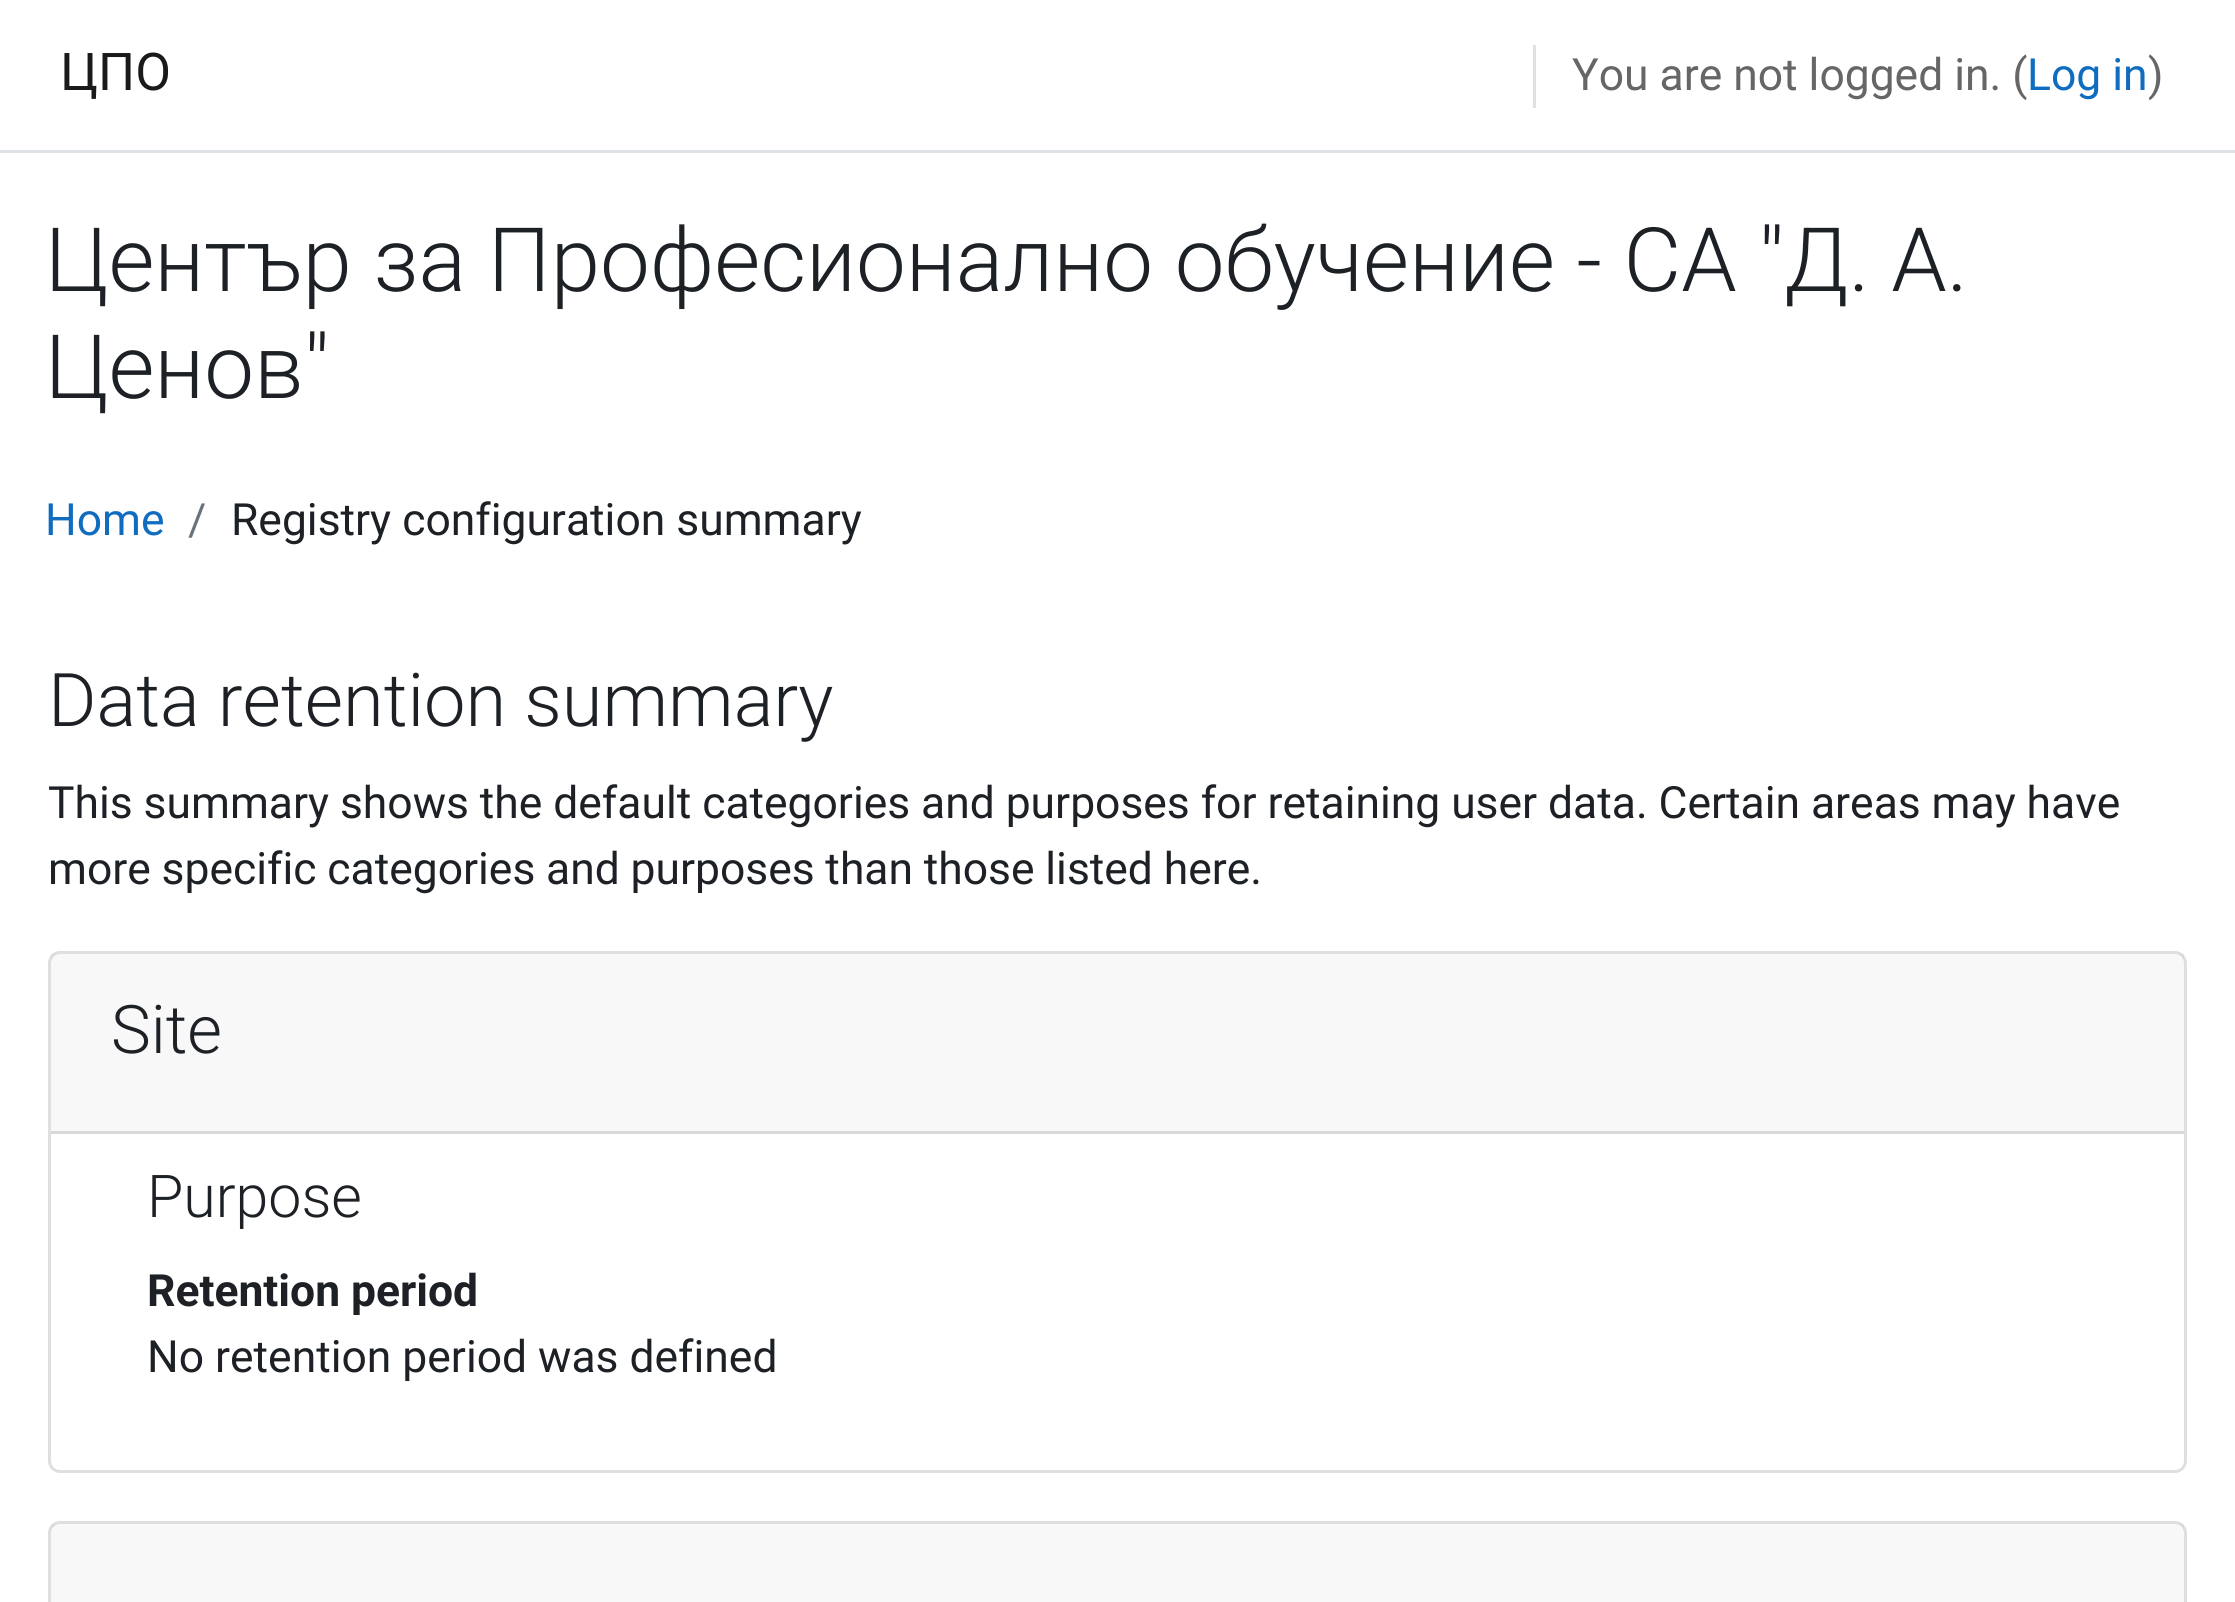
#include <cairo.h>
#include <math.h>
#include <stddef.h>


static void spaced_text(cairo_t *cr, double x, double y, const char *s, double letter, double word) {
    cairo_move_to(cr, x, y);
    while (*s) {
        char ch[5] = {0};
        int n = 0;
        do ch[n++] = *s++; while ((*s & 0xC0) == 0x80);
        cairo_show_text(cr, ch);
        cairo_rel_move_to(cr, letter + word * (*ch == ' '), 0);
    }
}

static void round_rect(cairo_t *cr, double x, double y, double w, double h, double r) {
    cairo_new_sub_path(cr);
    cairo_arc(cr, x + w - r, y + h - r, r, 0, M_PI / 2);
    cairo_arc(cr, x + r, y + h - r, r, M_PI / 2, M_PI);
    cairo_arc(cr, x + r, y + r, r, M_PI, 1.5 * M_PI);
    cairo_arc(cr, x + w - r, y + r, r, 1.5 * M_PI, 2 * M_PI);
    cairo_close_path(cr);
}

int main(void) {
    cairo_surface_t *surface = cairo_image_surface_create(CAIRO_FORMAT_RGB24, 2235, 1602);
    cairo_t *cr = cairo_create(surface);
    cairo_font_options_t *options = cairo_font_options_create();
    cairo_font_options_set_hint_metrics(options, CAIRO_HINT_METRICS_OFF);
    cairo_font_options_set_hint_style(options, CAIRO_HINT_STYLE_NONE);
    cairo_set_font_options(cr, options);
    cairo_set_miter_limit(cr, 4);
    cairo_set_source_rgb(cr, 1, 1, 1);
    cairo_paint(cr);
    cairo_set_source_rgb(cr, 0.871, 0.886, 0.902);
    cairo_rectangle(cr, 0, 150, 2235, 3);
    cairo_fill(cr);
    cairo_select_font_face(cr, "Roboto", CAIRO_FONT_SLANT_NORMAL, CAIRO_FONT_WEIGHT_NORMAL);
    cairo_set_font_size(cr, 52);
    cairo_set_source_rgb(cr, 0.102, 0.102, 0.102);
    cairo_move_to(cr, 60, 90);
    cairo_show_text(cr, "ЦПО");
    cairo_set_source_rgb(cr, 0.871, 0.886, 0.902);
    cairo_rectangle(cr, 1533, 45, 3, 63);
    cairo_fill(cr);
    cairo_set_font_size(cr, 44.4);
    cairo_set_source_rgb(cr, 0.4, 0.4, 0.4);
    cairo_move_to(cr, 1572, 90);
    cairo_show_text(cr, "You are not logged in. (");
    cairo_set_source_rgb(cr, 0.059, 0.424, 0.749);
    cairo_move_to(cr, 2027, 90);
    cairo_show_text(cr, "Log in");
    cairo_set_source_rgb(cr, 0.4, 0.4, 0.4);
    cairo_move_to(cr, 2148, 90);
    cairo_show_text(cr, ")");
    cairo_select_font_face(cr, "Roboto Light", CAIRO_FONT_SLANT_NORMAL, CAIRO_FONT_WEIGHT_NORMAL);
    cairo_set_font_size(cr, 88.85);
    cairo_set_source_rgb(cr, 0.114, 0.129, 0.145);
    cairo_move_to(cr, 45, 291);
    cairo_show_text(cr, "Център за Професионално обучение - СА \"Д. А.");
    cairo_move_to(cr, 45, 398);
    cairo_show_text(cr, "Ценов\"");
    cairo_select_font_face(cr, "Roboto", CAIRO_FONT_SLANT_NORMAL, CAIRO_FONT_WEIGHT_NORMAL);
    cairo_set_font_size(cr, 44.4);
    cairo_set_source_rgb(cr, 0.059, 0.424, 0.749);
    cairo_move_to(cr, 45, 535);
    cairo_show_text(cr, "Home");
    cairo_set_source_rgb(cr, 0.416, 0.451, 0.482);
    cairo_move_to(cr, 188, 535);
    cairo_show_text(cr, "/");
    cairo_set_source_rgb(cr, 0.114, 0.129, 0.145);
    cairo_move_to(cr, 231, 535);
    cairo_show_text(cr, "Registry configuration summary");
    cairo_select_font_face(cr, "Roboto Light", CAIRO_FONT_SLANT_NORMAL, CAIRO_FONT_WEIGHT_NORMAL);
    cairo_set_font_size(cr, 74);
    cairo_move_to(cr, 48, 726);
    cairo_show_text(cr, "Data retention summary");
    cairo_select_font_face(cr, "Roboto", CAIRO_FONT_SLANT_NORMAL, CAIRO_FONT_WEIGHT_NORMAL);
    cairo_set_font_size(cr, 44.4);
    spaced_text(cr, 48, 818, "This summary shows the default categories and purposes for retaining user data. Certain areas may have", 0, -0.1);
    spaced_text(cr, 48, 884, "more specific categories and purposes than those listed here.", 0, -0.25);
    round_rect(cr, 49.5, 952.5, 2136, 519, 10.5);
    cairo_set_source_rgb(cr, 0.875, 0.875, 0.875);
    cairo_set_line_width(cr, 3);
    cairo_stroke(cr);
    cairo_set_source_rgba(cr, 0, 0, 0, 0.03);
    cairo_rectangle(cr, 51, 954, 2133, 177);
    cairo_fill(cr);
    cairo_set_source_rgb(cr, 0.847, 0.847, 0.847);
    cairo_rectangle(cr, 51, 1131, 2133, 3);
    cairo_fill(cr);
    cairo_select_font_face(cr, "Roboto Light", CAIRO_FONT_SLANT_NORMAL, CAIRO_FONT_WEIGHT_NORMAL);
    cairo_set_font_size(cr, 67);
    cairo_set_source_rgb(cr, 0.114, 0.129, 0.145);
    cairo_move_to(cr, 111, 1053);
    cairo_show_text(cr, "Site");
    cairo_set_font_size(cr, 59);
    cairo_move_to(cr, 147, 1217);
    cairo_show_text(cr, "Purpose");
    cairo_select_font_face(cr, "Roboto", CAIRO_FONT_SLANT_NORMAL, CAIRO_FONT_WEIGHT_BOLD);
    cairo_set_font_size(cr, 44.4);
    cairo_move_to(cr, 147, 1306);
    cairo_show_text(cr, "Retention period");
    cairo_select_font_face(cr, "Roboto", CAIRO_FONT_SLANT_NORMAL, CAIRO_FONT_WEIGHT_NORMAL);
    cairo_move_to(cr, 147, 1372);
    cairo_show_text(cr, "No retention period was defined");
    round_rect(cr, 49.5, 1522.5, 2136, 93, 10.5);
    cairo_set_source_rgb(cr, 0.875, 0.875, 0.875);
    cairo_stroke(cr);
    cairo_set_source_rgba(cr, 0, 0, 0, 0.03);
    cairo_rectangle(cr, 51, 1524, 2133, 78);
    cairo_fill(cr);
    cairo_surface_write_to_png(surface, "page.png");
    cairo_font_options_destroy(options);
    cairo_destroy(cr);
    cairo_surface_destroy(surface);
    return 0;
}
